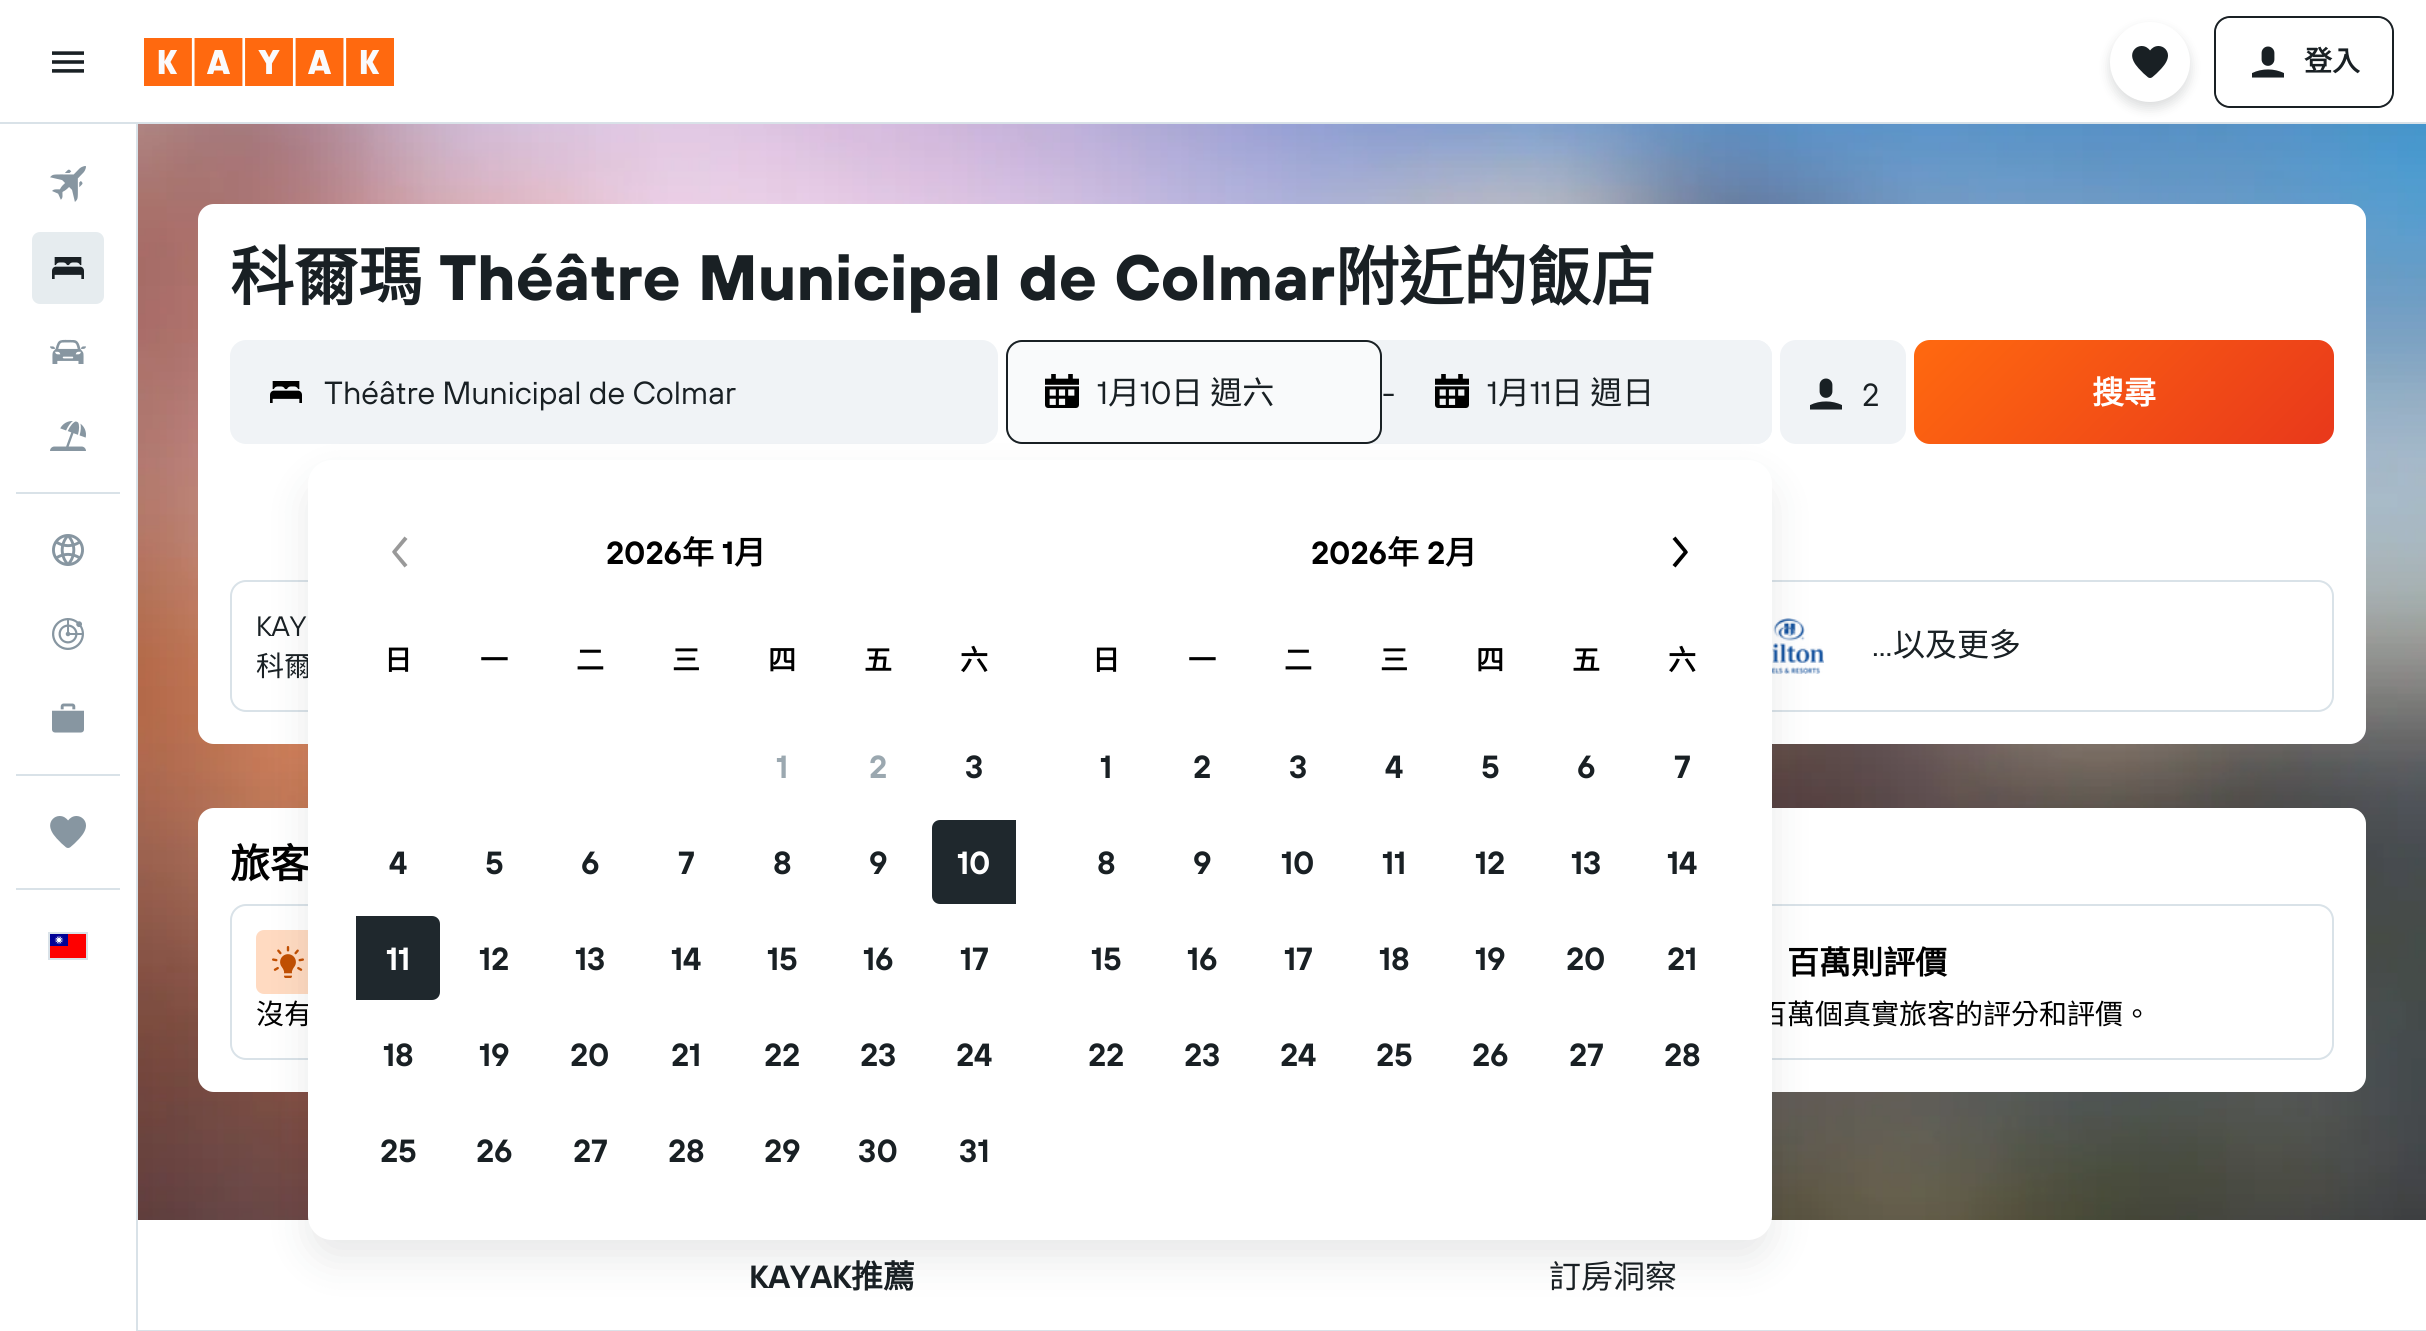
#include <cairo.h>
#include <math.h>
#include <stddef.h>


static void round_rect(cairo_t *cr, double x, double y, double w, double h, double r) {
    cairo_new_sub_path(cr);
    cairo_arc(cr, x + w - r, y + h - r, r, 0, M_PI / 2);
    cairo_arc(cr, x + r, y + h - r, r, M_PI / 2, M_PI);
    cairo_arc(cr, x + r, y + r, r, M_PI, 1.5 * M_PI);
    cairo_arc(cr, x + w - r, y + r, r, 1.5 * M_PI, 2 * M_PI);
    cairo_close_path(cr);
}

static void shadow(cairo_t *cr, double x, double y, double w, double h, double r, double blur, double alpha) {
    cairo_push_group_with_content(cr, CAIRO_CONTENT_ALPHA);
    cairo_set_operator(cr, CAIRO_OPERATOR_SOURCE);
    for (int i = 15; i >= -15 && fmin(w, h) + blur * i / 3 > 0; i -= 2) {
        double e = blur * i / 6;
        cairo_set_source_rgba(cr, 0, 0, 0, alpha * erfc((i - 1) / 8.5) / 2);
        round_rect(cr, x - e, y - e, w + 2 * e, h + 2 * e, fmax(0, fmin(r + e + blur * .6, fmin(w, h) / 2 + e)));
        cairo_fill(cr);
    }
    cairo_pattern_t *soft = cairo_pop_group(cr);
    cairo_mask(cr, soft);
    cairo_pattern_destroy(soft);
}

static void picture(cairo_t *cr, const char *path, double x, double y, double w, double h) {
    cairo_surface_t *image = cairo_image_surface_create_from_png(path);
    cairo_save(cr);
    cairo_set_source_surface(cr, image, x, y);
    cairo_rectangle(cr, x, y, w, h);
    cairo_fill(cr);
    cairo_restore(cr);
    cairo_surface_destroy(image);
}

int main(void) {
    cairo_surface_t *surface = cairo_image_surface_create(CAIRO_FORMAT_RGB24, 2426, 1331);
    cairo_t *cr = cairo_create(surface);
    cairo_font_options_t *options = cairo_font_options_create();
    cairo_font_options_set_hint_metrics(options, CAIRO_HINT_METRICS_OFF);
    cairo_font_options_set_hint_style(options, CAIRO_HINT_STYLE_NONE);
    cairo_set_font_options(cr, options);
    cairo_set_miter_limit(cr, 4);
    cairo_pattern_t *gradient;
    cairo_set_source_rgb(cr, 1, 1, 1);
    cairo_paint(cr);
    cairo_set_source_rgb(cr, 0.851, 0.886, 0.91);
    cairo_rectangle(cr, 0, 122, 2426, 2);
    cairo_fill(cr);
    picture(cr, "img1.png", 52, 51, 32, 22);
    picture(cr, "img2.png", 144, 38, 250, 48);
    picture(cr, "img14.png", 138, 124, 2288, 1096);
    cairo_set_source_rgb(cr, 0.098, 0.125, 0.141);
    shadow(cr, 2110, 28, 80, 80, 40, 6, 0.16);
    cairo_set_source_rgb(cr, 1, 1, 1);
    cairo_arc(cr, 2150, 62, 40, 0, 2 * M_PI);
    cairo_fill(cr);
    picture(cr, "img3.png", 2132, 46, 36, 32);
    round_rect(cr, 2215, 17, 178, 90, 15);
    cairo_set_source_rgb(cr, 0.098, 0.125, 0.141);
    cairo_stroke(cr);
    cairo_set_source_rgb(cr, 1, 1, 1);
    round_rect(cr, 2216, 18, 176, 88, 16);
    cairo_fill(cr);
    picture(cr, "img4.png", 2252, 46, 32, 32);
    cairo_select_font_face(cr, "Noto Sans CJK TC", CAIRO_FONT_SLANT_NORMAL, CAIRO_FONT_WEIGHT_BOLD);
    cairo_set_font_size(cr, 28);
    cairo_set_source_rgb(cr, 0.098, 0.125, 0.141);
    cairo_move_to(cr, 2304, 71);
    cairo_show_text(cr, "登入");
    cairo_set_source_rgb(cr, 0.851, 0.886, 0.91);
    cairo_rectangle(cr, 136, 124, 2, 1207);
    cairo_fill(cr);
    picture(cr, "img5.png", 50, 166, 36, 36);
    cairo_set_source_rgb(cr, 0.902, 0.922, 0.937);
    round_rect(cr, 32, 232, 72, 72, 8);
    cairo_fill(cr);
    picture(cr, "img6.png", 52, 257, 32, 22);
    picture(cr, "img7.png", 50, 339, 36, 25);
    picture(cr, "img8.png", 50, 421, 36, 30);
    cairo_set_source_rgb(cr, 0.851, 0.886, 0.91);
    cairo_rectangle(cr, 16, 492, 104, 2);
    cairo_fill(cr);
    picture(cr, "img9.png", 52, 534, 32, 32);
    picture(cr, "img10.png", 52, 618, 32, 32);
    picture(cr, "img11.png", 52, 703, 32, 30);
    cairo_rectangle(cr, 16, 774, 104, 2);
    cairo_fill(cr);
    picture(cr, "img12.png", 50, 816, 36, 32);
    cairo_rectangle(cr, 16, 888, 104, 2);
    cairo_fill(cr);
    cairo_rectangle(cr, 49, 933, 38, 26);
    cairo_stroke(cr);
    picture(cr, "img13.png", 50, 934, 36, 24);
    cairo_set_source_rgb(cr, 1, 1, 1);
    round_rect(cr, 198, 204, 2168, 540, 16);
    cairo_fill(cr);
    cairo_set_font_size(cr, 64);
    cairo_set_source_rgb(cr, 0.098, 0.125, 0.141);
    cairo_move_to(cr, 230, 300);
    cairo_show_text(cr, "科爾瑪");
    cairo_select_font_face(cr, "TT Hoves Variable", CAIRO_FONT_SLANT_NORMAL, CAIRO_FONT_WEIGHT_BOLD);
    cairo_move_to(cr, 439, 300);
    cairo_show_text(cr, "Théâtre Municipal de Colmar");
    cairo_select_font_face(cr, "Noto Sans CJK TC", CAIRO_FONT_SLANT_NORMAL, CAIRO_FONT_WEIGHT_BOLD);
    cairo_move_to(cr, 1335, 300);
    cairo_show_text(cr, "附近的飯店");
    cairo_set_source_rgb(cr, 0.941, 0.953, 0.961);
    round_rect(cr, 231, 341, 766, 102, 15);
    cairo_fill_preserve(cr);
    cairo_stroke(cr);
    picture(cr, "img15.png", 270, 381, 32, 22);
    cairo_select_font_face(cr, "TT Hoves Variable", CAIRO_FONT_SLANT_NORMAL, CAIRO_FONT_WEIGHT_NORMAL);
    cairo_set_font_size(cr, 32);
    cairo_set_source_rgb(cr, 0.098, 0.125, 0.141);
    cairo_move_to(cr, 324, 404);
    cairo_show_text(cr, "Théâtre Municipal de Colmar");
    cairo_set_source_rgb(cr, 0.941, 0.953, 0.961);
    round_rect(cr, 1006, 340, 766, 104, 16);
    cairo_fill(cr);
    cairo_set_source_rgb(cr, 0.976, 0.98, 0.984);
    round_rect(cr, 1007, 341, 374, 102, 15);
    cairo_fill_preserve(cr);
    cairo_set_source_rgb(cr, 0.098, 0.125, 0.141);
    cairo_stroke(cr);
    picture(cr, "img16.png", 1045, 374, 34, 34);
    cairo_move_to(cr, 1097, 404);
    cairo_show_text(cr, "1");
    cairo_select_font_face(cr, "Noto Sans CJK TC", CAIRO_FONT_SLANT_NORMAL, CAIRO_FONT_WEIGHT_NORMAL);
    cairo_move_to(cr, 1108, 404);
    cairo_show_text(cr, "月");
    cairo_select_font_face(cr, "TT Hoves Variable", CAIRO_FONT_SLANT_NORMAL, CAIRO_FONT_WEIGHT_NORMAL);
    cairo_move_to(cr, 1140, 404);
    cairo_show_text(cr, "10");
    cairo_select_font_face(cr, "Noto Sans CJK TC", CAIRO_FONT_SLANT_NORMAL, CAIRO_FONT_WEIGHT_NORMAL);
    cairo_move_to(cr, 1171, 404);
    cairo_show_text(cr, "日 週六");
    cairo_select_font_face(cr, "TT Hoves Variable", CAIRO_FONT_SLANT_NORMAL, CAIRO_FONT_WEIGHT_NORMAL);
    cairo_move_to(cr, 1382, 404);
    cairo_show_text(cr, "-");
    cairo_set_source_rgb(cr, 0.941, 0.953, 0.961);
    round_rect(cr, 1396, 340, 376, 104, 16);
    cairo_fill(cr);
    picture(cr, "img17.png", 1435, 374, 34, 34);
    cairo_set_source_rgb(cr, 0.098, 0.125, 0.141);
    cairo_move_to(cr, 1487, 404);
    cairo_show_text(cr, "1");
    cairo_select_font_face(cr, "Noto Sans CJK TC", CAIRO_FONT_SLANT_NORMAL, CAIRO_FONT_WEIGHT_NORMAL);
    cairo_move_to(cr, 1498, 404);
    cairo_show_text(cr, "月");
    cairo_select_font_face(cr, "TT Hoves Variable", CAIRO_FONT_SLANT_NORMAL, CAIRO_FONT_WEIGHT_NORMAL);
    cairo_move_to(cr, 1530, 404);
    cairo_show_text(cr, "11");
    cairo_select_font_face(cr, "Noto Sans CJK TC", CAIRO_FONT_SLANT_NORMAL, CAIRO_FONT_WEIGHT_NORMAL);
    cairo_move_to(cr, 1551, 404);
    cairo_show_text(cr, "日 週日");
    cairo_set_source_rgb(cr, 0.941, 0.953, 0.961);
    round_rect(cr, 1780, 340, 126, 104, 16);
    cairo_fill(cr);
    picture(cr, "img18.png", 1810, 378, 32, 32);
    cairo_select_font_face(cr, "TT Hoves Variable", CAIRO_FONT_SLANT_NORMAL, CAIRO_FONT_WEIGHT_NORMAL);
    cairo_set_source_rgb(cr, 0.098, 0.125, 0.141);
    cairo_move_to(cr, 1862, 406);
    cairo_show_text(cr, "2");
    gradient = cairo_pattern_create_linear(1993, 261, 2255, 523);
    cairo_pattern_add_color_stop_rgba(gradient, 0, 1, 0.412, 0.059, 1);
    cairo_pattern_add_color_stop_rgba(gradient, 1, 0.91, 0.22, 0.106, 1);
    cairo_set_source(cr, gradient);
    cairo_pattern_destroy(gradient);
    round_rect(cr, 1914, 340, 420, 104, 16);
    cairo_fill(cr);
    cairo_select_font_face(cr, "Noto Sans CJK TC", CAIRO_FONT_SLANT_NORMAL, CAIRO_FONT_WEIGHT_BOLD);
    cairo_set_source_rgb(cr, 1, 1, 1);
    cairo_move_to(cr, 2092, 404);
    cairo_show_text(cr, "搜尋");
    round_rect(cr, 231, 581, 2102, 130, 15);
    cairo_set_source_rgb(cr, 0.851, 0.886, 0.91);
    cairo_stroke(cr);
    cairo_select_font_face(cr, "TT Hoves Variable", CAIRO_FONT_SLANT_NORMAL, CAIRO_FONT_WEIGHT_NORMAL);
    cairo_set_font_size(cr, 28);
    cairo_set_source_rgb(cr, 0.098, 0.125, 0.141);
    cairo_move_to(cr, 256, 636);
    cairo_show_text(cr, "KAY");
    cairo_select_font_face(cr, "Noto Sans CJK TC", CAIRO_FONT_SLANT_NORMAL, CAIRO_FONT_WEIGHT_NORMAL);
    cairo_move_to(cr, 256, 676);
    cairo_show_text(cr, "科爾");
    picture(cr, "img19.png", 1772, 618, 52, 56);
    cairo_select_font_face(cr, "TT Hoves Variable", CAIRO_FONT_SLANT_NORMAL, CAIRO_FONT_WEIGHT_NORMAL);
    cairo_set_font_size(cr, 32);
    cairo_move_to(cr, 1872, 656);
    cairo_show_text(cr, "...");
    cairo_select_font_face(cr, "Noto Sans CJK TC", CAIRO_FONT_SLANT_NORMAL, CAIRO_FONT_WEIGHT_NORMAL);
    cairo_move_to(cr, 1893, 656);
    cairo_show_text(cr, "以及更多");
    cairo_set_source_rgb(cr, 1, 1, 1);
    round_rect(cr, 198, 808, 2168, 284, 16);
    cairo_fill(cr);
    cairo_select_font_face(cr, "Noto Sans CJK TC", CAIRO_FONT_SLANT_NORMAL, CAIRO_FONT_WEIGHT_BOLD);
    cairo_set_font_size(cr, 40);
    cairo_set_source_rgb(cr, 0, 0, 0);
    cairo_move_to(cr, 230, 878);
    cairo_show_text(cr, "旅客");
    round_rect(cr, 231, 905, 684, 154, 15);
    cairo_set_source_rgb(cr, 0.851, 0.886, 0.91);
    cairo_stroke(cr);
    cairo_set_source_rgb(cr, 1, 0.855, 0.757);
    round_rect(cr, 256, 930, 64, 64, 8);
    cairo_fill(cr);
    picture(cr, "img20.png", 272, 946, 32, 32);
    cairo_select_font_face(cr, "Noto Sans CJK TC", CAIRO_FONT_SLANT_NORMAL, CAIRO_FONT_WEIGHT_NORMAL);
    cairo_set_font_size(cr, 28);
    cairo_set_source_rgb(cr, 0, 0, 0);
    cairo_move_to(cr, 256, 1024);
    cairo_show_text(cr, "沒有");
    round_rect(cr, 1649, 905, 684, 154, 15);
    cairo_set_source_rgb(cr, 0.851, 0.886, 0.91);
    cairo_stroke(cr);
    cairo_select_font_face(cr, "Noto Sans CJK TC", CAIRO_FONT_SLANT_NORMAL, CAIRO_FONT_WEIGHT_BOLD);
    cairo_set_font_size(cr, 32);
    cairo_set_source_rgb(cr, 0, 0, 0);
    cairo_move_to(cr, 1787, 974);
    cairo_show_text(cr, "百萬則評價");
    cairo_select_font_face(cr, "Noto Sans CJK TC", CAIRO_FONT_SLANT_NORMAL, CAIRO_FONT_WEIGHT_NORMAL);
    cairo_set_font_size(cr, 28);
    cairo_move_to(cr, 1759, 1024);
    cairo_show_text(cr, "百萬個真實旅客的評分和評價。");
    cairo_set_source_rgb(cr, 0.851, 0.886, 0.91);
    cairo_rectangle(cr, 138, 1330, 2288, 1);
    cairo_fill(cr);
    cairo_select_font_face(cr, "TT Hoves Variable SemiBold", CAIRO_FONT_SLANT_NORMAL, CAIRO_FONT_WEIGHT_NORMAL);
    cairo_set_font_size(cr, 32);
    cairo_set_source_rgb(cr, 0.098, 0.125, 0.141);
    cairo_move_to(cr, 749, 1288);
    cairo_show_text(cr, "KAYAK");
    cairo_select_font_face(cr, "Noto Sans CJK TC", CAIRO_FONT_SLANT_NORMAL, CAIRO_FONT_WEIGHT_BOLD);
    cairo_move_to(cr, 851, 1288);
    cairo_show_text(cr, "推薦");
    cairo_select_font_face(cr, "Noto Sans CJK TC", CAIRO_FONT_SLANT_NORMAL, CAIRO_FONT_WEIGHT_NORMAL);
    cairo_move_to(cr, 1549, 1288);
    cairo_show_text(cr, "訂房洞察");
    cairo_set_source_rgb(cr, 0.098, 0.125, 0.141);
    shadow(cr, 308, 480, 1464, 780, 24, 20, 0.1);
    cairo_set_source_rgb(cr, 1, 1, 1);
    round_rect(cr, 308, 460, 1464, 780, 24);
    cairo_fill(cr);
    cairo_set_source_rgb(cr, 0.6, 0.6, 0.6);
    cairo_new_path(cr);
    cairo_move_to(cr, 404.5, 567.5);
    cairo_curve_to(cr, 392, 552, 391.5, 552.5, 392.5, 551);
    cairo_line_to(cr, 404.5, 536.5);
    cairo_line_to(cr, 407.5, 539);
    cairo_line_to(cr, 396.5, 552);
    cairo_line_to(cr, 407.5, 565);
    cairo_close_path(cr);
    cairo_fill(cr);
    cairo_set_source_rgb(cr, 0, 0, 0);
    cairo_new_path(cr);
    cairo_move_to(cr, 1675.5, 567.5);
    cairo_line_to(cr, 1672.5, 565);
    cairo_line_to(cr, 1683.5, 552);
    cairo_line_to(cr, 1672.5, 539);
    cairo_line_to(cr, 1675.5, 536.5);
    cairo_curve_to(cr, 1688, 552, 1688.5, 551.5, 1687.5, 553);
    cairo_close_path(cr);
    cairo_fill(cr);
    cairo_select_font_face(cr, "TT Hoves Variable SemiBold", CAIRO_FONT_SLANT_NORMAL, CAIRO_FONT_WEIGHT_NORMAL);
    cairo_move_to(cr, 606, 564);
    cairo_show_text(cr, "2026");
    cairo_select_font_face(cr, "Noto Sans CJK TC", CAIRO_FONT_SLANT_NORMAL, CAIRO_FONT_WEIGHT_BOLD);
    cairo_move_to(cr, 682, 564);
    cairo_show_text(cr, "年");
    cairo_select_font_face(cr, "TT Hoves Variable SemiBold", CAIRO_FONT_SLANT_NORMAL, CAIRO_FONT_WEIGHT_NORMAL);
    cairo_move_to(cr, 722, 564);
    cairo_show_text(cr, "1");
    cairo_select_font_face(cr, "Noto Sans CJK TC", CAIRO_FONT_SLANT_NORMAL, CAIRO_FONT_WEIGHT_BOLD);
    cairo_move_to(cr, 734, 564);
    cairo_show_text(cr, "月");
    cairo_set_font_size(cr, 28);
    cairo_move_to(cr, 384, 670);
    cairo_show_text(cr, "日");
    cairo_move_to(cr, 480, 670);
    cairo_show_text(cr, "一");
    cairo_move_to(cr, 576, 670);
    cairo_show_text(cr, "二");
    cairo_move_to(cr, 672, 670);
    cairo_show_text(cr, "三");
    cairo_move_to(cr, 768, 670);
    cairo_show_text(cr, "四");
    cairo_move_to(cr, 864, 670);
    cairo_show_text(cr, "五");
    cairo_move_to(cr, 960, 670);
    cairo_show_text(cr, "六");
    cairo_select_font_face(cr, "TT Hoves Variable SemiBold", CAIRO_FONT_SLANT_NORMAL, CAIRO_FONT_WEIGHT_NORMAL);
    cairo_set_font_size(cr, 32);
    cairo_set_source_rgb(cr, 0.608, 0.659, 0.69);
    cairo_move_to(cr, 776, 778);
    cairo_show_text(cr, "1");
    cairo_move_to(cr, 869, 778);
    cairo_show_text(cr, "2");
    cairo_set_source_rgb(cr, 0.098, 0.125, 0.141);
    cairo_move_to(cr, 965, 778);
    cairo_show_text(cr, "3");
    cairo_move_to(cr, 389, 874);
    cairo_show_text(cr, "4");
    cairo_move_to(cr, 485, 874);
    cairo_show_text(cr, "5");
    cairo_move_to(cr, 581, 874);
    cairo_show_text(cr, "6");
    cairo_move_to(cr, 678, 874);
    cairo_show_text(cr, "7");
    cairo_move_to(cr, 773, 874);
    cairo_show_text(cr, "8");
    cairo_move_to(cr, 869, 874);
    cairo_show_text(cr, "9");
    cairo_set_source_rgb(cr, 0.122, 0.157, 0.176);
    cairo_new_path(cr);
    cairo_move_to(cr, 940, 820);
    cairo_line_to(cr, 1016, 820);
    cairo_line_to(cr, 1016, 904);
    cairo_line_to(cr, 940, 904);
    cairo_curve_to(cr, 935.5, 904, 932, 900.5, 932, 896);
    cairo_line_to(cr, 932, 828);
    cairo_curve_to(cr, 932, 823.5, 935.5, 820, 940, 820);
    cairo_close_path(cr);
    cairo_fill(cr);
    cairo_set_source_rgb(cr, 1, 1, 1);
    cairo_move_to(cr, 957, 874);
    cairo_show_text(cr, "10");
    cairo_set_source_rgb(cr, 0.122, 0.157, 0.176);
    cairo_new_path(cr);
    cairo_move_to(cr, 356, 916);
    cairo_line_to(cr, 432, 916);
    cairo_curve_to(cr, 436.5, 916, 440, 919.5, 440, 924);
    cairo_line_to(cr, 440, 992);
    cairo_curve_to(cr, 440, 996.5, 436.5, 1000, 432, 1000);
    cairo_line_to(cr, 356, 1000);
    cairo_close_path(cr);
    cairo_fill(cr);
    cairo_set_source_rgb(cr, 1, 1, 1);
    cairo_move_to(cr, 386, 970);
    cairo_show_text(cr, "11");
    cairo_set_source_rgb(cr, 0.098, 0.125, 0.141);
    cairo_move_to(cr, 479, 970);
    cairo_show_text(cr, "12");
    cairo_move_to(cr, 575, 970);
    cairo_show_text(cr, "13");
    cairo_move_to(cr, 671, 970);
    cairo_show_text(cr, "14");
    cairo_move_to(cr, 767, 970);
    cairo_show_text(cr, "15");
    cairo_move_to(cr, 863, 970);
    cairo_show_text(cr, "16");
    cairo_move_to(cr, 960, 970);
    cairo_show_text(cr, "17");
    cairo_move_to(cr, 383, 1066);
    cairo_show_text(cr, "18");
    cairo_move_to(cr, 479, 1066);
    cairo_show_text(cr, "19");
    cairo_move_to(cr, 570, 1066);
    cairo_show_text(cr, "20");
    cairo_move_to(cr, 671, 1066);
    cairo_show_text(cr, "21");
    cairo_move_to(cr, 764, 1066);
    cairo_show_text(cr, "22");
    cairo_move_to(cr, 860, 1066);
    cairo_show_text(cr, "23");
    cairo_move_to(cr, 956, 1066);
    cairo_show_text(cr, "24");
    cairo_move_to(cr, 380, 1162);
    cairo_show_text(cr, "25");
    cairo_move_to(cr, 476, 1162);
    cairo_show_text(cr, "26");
    cairo_move_to(cr, 573, 1162);
    cairo_show_text(cr, "27");
    cairo_move_to(cr, 668, 1162);
    cairo_show_text(cr, "28");
    cairo_move_to(cr, 764, 1162);
    cairo_show_text(cr, "29");
    cairo_move_to(cr, 858, 1162);
    cairo_show_text(cr, "30");
    cairo_move_to(cr, 959, 1162);
    cairo_show_text(cr, "31");
    cairo_set_source_rgb(cr, 0, 0, 0);
    cairo_move_to(cr, 1311, 564);
    cairo_show_text(cr, "2026");
    cairo_select_font_face(cr, "Noto Sans CJK TC", CAIRO_FONT_SLANT_NORMAL, CAIRO_FONT_WEIGHT_BOLD);
    cairo_move_to(cr, 1387, 564);
    cairo_show_text(cr, "年");
    cairo_select_font_face(cr, "TT Hoves Variable SemiBold", CAIRO_FONT_SLANT_NORMAL, CAIRO_FONT_WEIGHT_NORMAL);
    cairo_move_to(cr, 1427, 564);
    cairo_show_text(cr, "2");
    cairo_select_font_face(cr, "Noto Sans CJK TC", CAIRO_FONT_SLANT_NORMAL, CAIRO_FONT_WEIGHT_BOLD);
    cairo_move_to(cr, 1445, 564);
    cairo_show_text(cr, "月");
    cairo_set_font_size(cr, 28);
    cairo_move_to(cr, 1092, 670);
    cairo_show_text(cr, "日");
    cairo_move_to(cr, 1188, 670);
    cairo_show_text(cr, "一");
    cairo_move_to(cr, 1284, 670);
    cairo_show_text(cr, "二");
    cairo_move_to(cr, 1380, 670);
    cairo_show_text(cr, "三");
    cairo_move_to(cr, 1476, 670);
    cairo_show_text(cr, "四");
    cairo_move_to(cr, 1572, 670);
    cairo_show_text(cr, "五");
    cairo_move_to(cr, 1668, 670);
    cairo_show_text(cr, "六");
    cairo_select_font_face(cr, "TT Hoves Variable SemiBold", CAIRO_FONT_SLANT_NORMAL, CAIRO_FONT_WEIGHT_NORMAL);
    cairo_set_font_size(cr, 32);
    cairo_set_source_rgb(cr, 0.098, 0.125, 0.141);
    cairo_move_to(cr, 1100, 778);
    cairo_show_text(cr, "1");
    cairo_move_to(cr, 1193, 778);
    cairo_show_text(cr, "2");
    cairo_move_to(cr, 1289, 778);
    cairo_show_text(cr, "3");
    cairo_move_to(cr, 1385, 778);
    cairo_show_text(cr, "4");
    cairo_move_to(cr, 1481, 778);
    cairo_show_text(cr, "5");
    cairo_move_to(cr, 1577, 778);
    cairo_show_text(cr, "6");
    cairo_move_to(cr, 1674, 778);
    cairo_show_text(cr, "7");
    cairo_move_to(cr, 1097, 874);
    cairo_show_text(cr, "8");
    cairo_move_to(cr, 1193, 874);
    cairo_show_text(cr, "9");
    cairo_move_to(cr, 1281, 874);
    cairo_show_text(cr, "10");
    cairo_move_to(cr, 1382, 874);
    cairo_show_text(cr, "11");
    cairo_move_to(cr, 1475, 874);
    cairo_show_text(cr, "12");
    cairo_move_to(cr, 1571, 874);
    cairo_show_text(cr, "13");
    cairo_move_to(cr, 1667, 874);
    cairo_show_text(cr, "14");
    cairo_move_to(cr, 1091, 970);
    cairo_show_text(cr, "15");
    cairo_move_to(cr, 1187, 970);
    cairo_show_text(cr, "16");
    cairo_move_to(cr, 1284, 970);
    cairo_show_text(cr, "17");
    cairo_move_to(cr, 1379, 970);
    cairo_show_text(cr, "18");
    cairo_move_to(cr, 1475, 970);
    cairo_show_text(cr, "19");
    cairo_move_to(cr, 1566, 970);
    cairo_show_text(cr, "20");
    cairo_move_to(cr, 1667, 970);
    cairo_show_text(cr, "21");
    cairo_move_to(cr, 1088, 1066);
    cairo_show_text(cr, "22");
    cairo_move_to(cr, 1184, 1066);
    cairo_show_text(cr, "23");
    cairo_move_to(cr, 1280, 1066);
    cairo_show_text(cr, "24");
    cairo_move_to(cr, 1376, 1066);
    cairo_show_text(cr, "25");
    cairo_move_to(cr, 1472, 1066);
    cairo_show_text(cr, "26");
    cairo_move_to(cr, 1569, 1066);
    cairo_show_text(cr, "27");
    cairo_move_to(cr, 1664, 1066);
    cairo_show_text(cr, "28");
    cairo_surface_write_to_png(surface, "page.png");
    cairo_font_options_destroy(options);
    cairo_destroy(cr);
    cairo_surface_destroy(surface);
    return 0;
}
